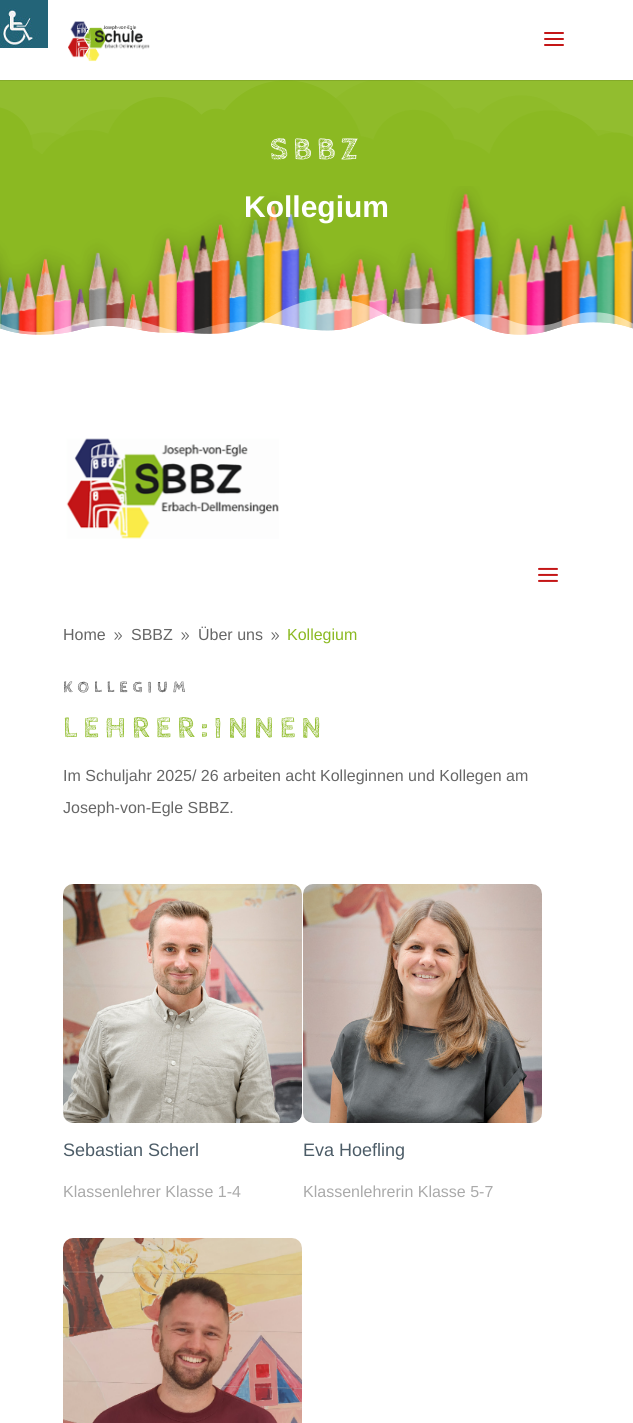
#include <cairo.h>
#include <math.h>
#include <stddef.h>


static void spaced_text(cairo_t *cr, double x, double y, const char *s, double letter, double word) {
    cairo_move_to(cr, x, y);
    while (*s) {
        char ch[5] = {0};
        int n = 0;
        do ch[n++] = *s++; while ((*s & 0xC0) == 0x80);
        cairo_show_text(cr, ch);
        cairo_rel_move_to(cr, letter + word * (*ch == ' '), 0);
    }
}

static void picture(cairo_t *cr, const char *path, double x, double y, double w, double h) {
    cairo_surface_t *image = cairo_image_surface_create_from_png(path);
    cairo_save(cr);
    cairo_set_source_surface(cr, image, x, y);
    cairo_rectangle(cr, x, y, w, h);
    cairo_fill(cr);
    cairo_restore(cr);
    cairo_surface_destroy(image);
}

int main(void) {
    cairo_surface_t *surface = cairo_image_surface_create(CAIRO_FORMAT_RGB24, 633, 1423);
    cairo_t *cr = cairo_create(surface);
    cairo_font_options_t *options = cairo_font_options_create();
    cairo_font_options_set_hint_metrics(options, CAIRO_HINT_METRICS_OFF);
    cairo_font_options_set_hint_style(options, CAIRO_HINT_STYLE_NONE);
    cairo_set_font_options(cr, options);
    cairo_set_miter_limit(cr, 4);
    cairo_set_source_rgb(cr, 1, 1, 1);
    cairo_paint(cr);
    picture(cr, "img1.png", 0, 0, 48, 48);
    cairo_set_source_rgb(cr, 0.545, 0.725, 0.133);
    cairo_rectangle(cr, 0, 80, 633, 255);
    cairo_fill(cr);
    cairo_select_font_face(cr, "Cabin Sketch", CAIRO_FONT_SLANT_NORMAL, CAIRO_FONT_WEIGHT_BOLD);
    cairo_set_font_size(cr, 32);
    cairo_set_source_rgb(cr, 1, 1, 1);
    spaced_text(cr, 270, 159, "SBBZ", 5, 0);
    picture(cr, "img4.png", 0, 80, 633, 74);
    cairo_set_source_rgba(cr, 0, 0, 0, 0.1);
    cairo_rectangle(cr, 0, 80, 633, 1);
    cairo_fill(cr);
    picture(cr, "img2.png", 68, 21, 82, 41);
    picture(cr, "img3.png", 544, 32, 20, 14);
    picture(cr, "img5.png", 0, 186, 633, 149);
    cairo_select_font_face(cr, "Liberation Sans", CAIRO_FONT_SLANT_NORMAL, CAIRO_FONT_WEIGHT_BOLD);
    cairo_set_font_size(cr, 30);
    cairo_set_source_rgb(cr, 1, 1, 1);
    cairo_move_to(cr, 244, 217);
    cairo_show_text(cr, "Kollegium");
    picture(cr, "img6.png", 0, 299, 633, 39);
    picture(cr, "img7.png", 66, 438, 213, 101);
    picture(cr, "img8.png", 538, 567, 20, 15);
    cairo_select_font_face(cr, "Liberation Sans", CAIRO_FONT_SLANT_NORMAL, CAIRO_FONT_WEIGHT_NORMAL);
    cairo_set_font_size(cr, 16);
    cairo_set_source_rgb(cr, 0.4, 0.4, 0.4);
    cairo_move_to(cr, 63, 640);
    cairo_show_text(cr, "Home");
    picture(cr, "img9.png", 114, 632, 8, 8);
    cairo_move_to(cr, 131, 640);
    cairo_show_text(cr, "SBBZ");
    picture(cr, "img9.png", 181, 632, 8, 8);
    cairo_move_to(cr, 198, 640);
    cairo_show_text(cr, "Über uns");
    picture(cr, "img9.png", 271, 632, 8, 8);
    cairo_set_source_rgb(cr, 0.545, 0.725, 0.133);
    cairo_move_to(cr, 287, 640);
    cairo_show_text(cr, "Kollegium");
    cairo_select_font_face(cr, "Cabin Sketch", CAIRO_FONT_SLANT_NORMAL, CAIRO_FONT_WEIGHT_BOLD);
    cairo_set_source_rgb(cr, 0.2, 0.2, 0.2);
    spaced_text(cr, 63, 692, "KOLLEGIUM", 5, 0);
    cairo_set_font_size(cr, 30);
    cairo_set_source_rgb(cr, 0.545, 0.725, 0.133);
    spaced_text(cr, 63, 737, "LEHRER:INNEN", 6, 0);
    cairo_select_font_face(cr, "Liberation Sans", CAIRO_FONT_SLANT_NORMAL, CAIRO_FONT_WEIGHT_NORMAL);
    cairo_set_font_size(cr, 16);
    cairo_set_source_rgb(cr, 0.4, 0.4, 0.4);
    cairo_move_to(cr, 63, 781);
    cairo_show_text(cr, "Im Schuljahr 2025/ 26 arbeiten acht Kolleginnen und Kollegen am");
    cairo_move_to(cr, 63, 813);
    cairo_show_text(cr, "Joseph-von-Egle SBBZ.");
    picture(cr, "img10.png", 63, 884, 239, 239);
    cairo_set_font_size(cr, 18);
    cairo_set_source_rgb(cr, 0.298, 0.361, 0.404);
    cairo_move_to(cr, 63, 1156);
    cairo_show_text(cr, "Sebastian Scherl");
    cairo_set_font_size(cr, 16);
    cairo_set_source_rgb(cr, 0.667, 0.667, 0.667);
    cairo_move_to(cr, 63, 1197);
    cairo_show_text(cr, "Klassenlehrer Klasse 1-4");
    picture(cr, "img11.png", 303, 884, 239, 239);
    cairo_set_font_size(cr, 18);
    cairo_set_source_rgb(cr, 0.298, 0.361, 0.404);
    cairo_move_to(cr, 303, 1156);
    cairo_show_text(cr, "Eva Hoefling");
    cairo_set_font_size(cr, 16);
    cairo_set_source_rgb(cr, 0.667, 0.667, 0.667);
    cairo_move_to(cr, 303, 1197);
    cairo_show_text(cr, "Klassenlehrerin Klasse 5-7");
    picture(cr, "img12.png", 63, 1238, 239, 185);
    cairo_surface_write_to_png(surface, "page.png");
    cairo_font_options_destroy(options);
    cairo_destroy(cr);
    cairo_surface_destroy(surface);
    return 0;
}
